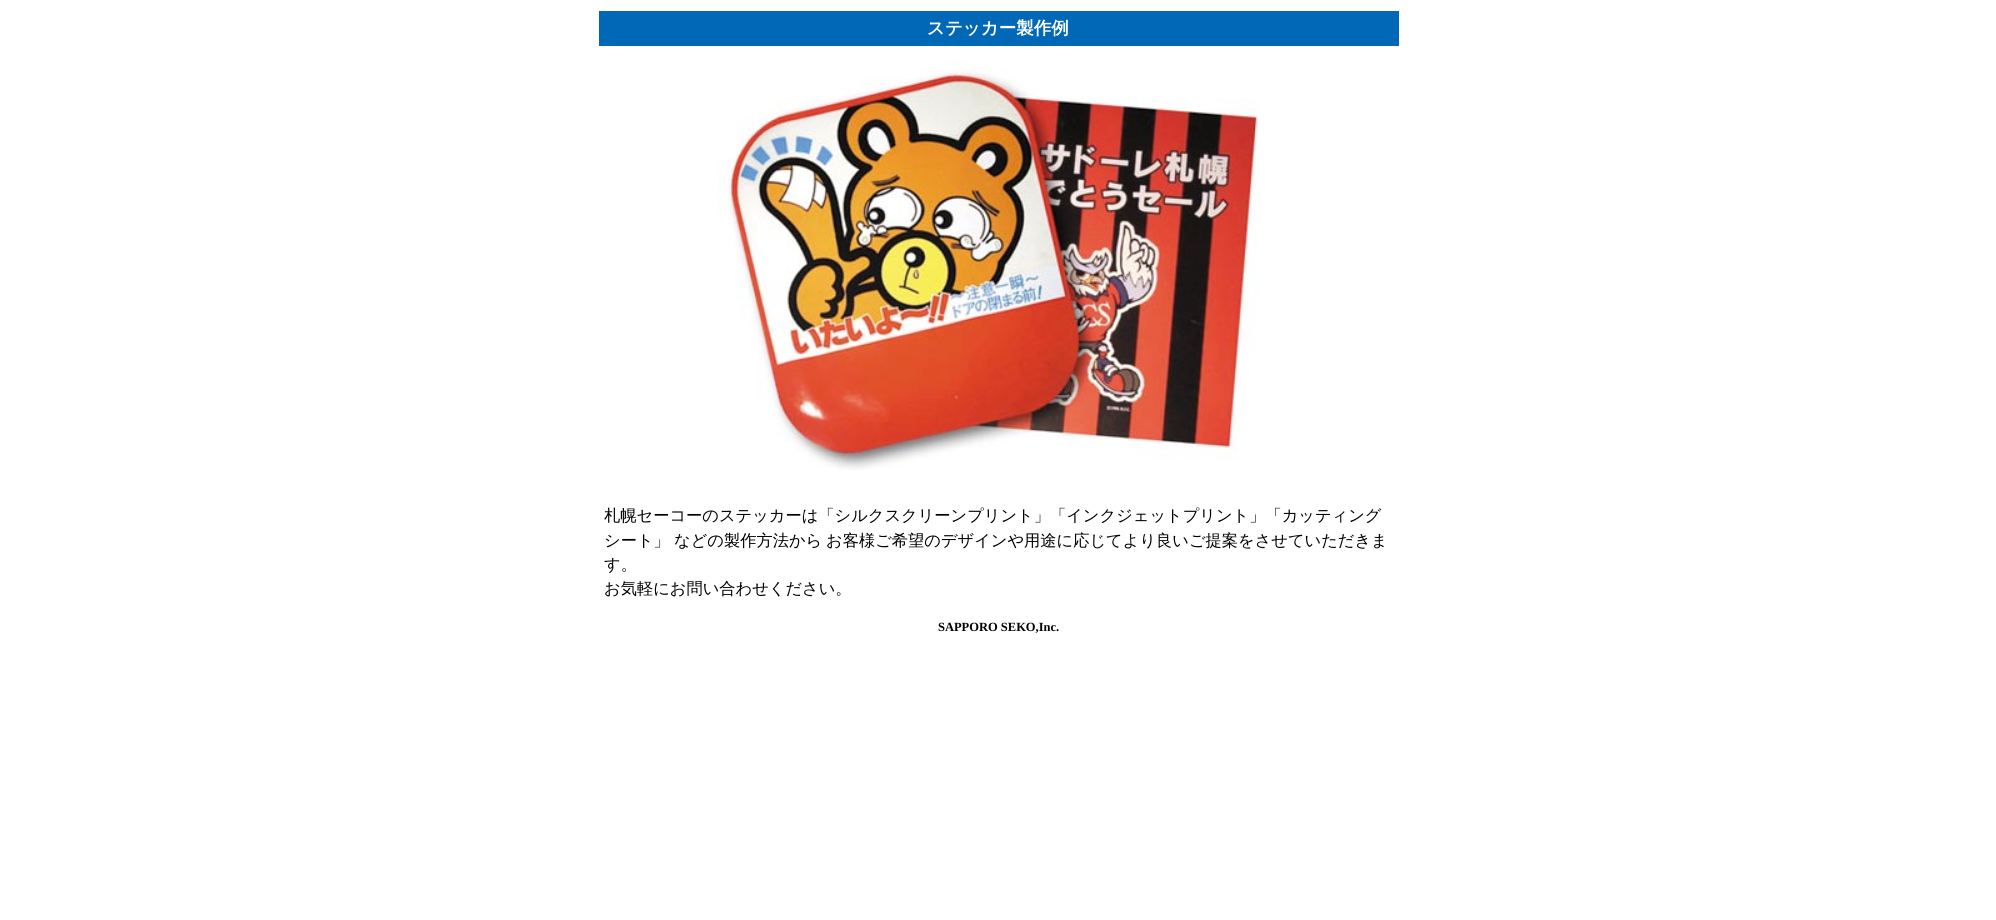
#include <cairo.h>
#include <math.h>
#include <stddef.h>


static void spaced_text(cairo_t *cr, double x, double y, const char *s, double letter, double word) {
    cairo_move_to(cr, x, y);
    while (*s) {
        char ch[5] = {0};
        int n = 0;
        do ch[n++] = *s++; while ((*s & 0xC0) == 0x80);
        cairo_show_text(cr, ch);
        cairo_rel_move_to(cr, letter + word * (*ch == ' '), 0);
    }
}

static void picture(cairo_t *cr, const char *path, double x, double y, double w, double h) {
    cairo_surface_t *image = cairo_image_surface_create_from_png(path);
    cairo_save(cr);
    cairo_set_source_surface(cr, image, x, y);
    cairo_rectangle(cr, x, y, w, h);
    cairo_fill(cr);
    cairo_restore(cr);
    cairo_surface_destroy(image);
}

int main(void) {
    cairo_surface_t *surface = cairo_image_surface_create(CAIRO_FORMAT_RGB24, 1996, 920);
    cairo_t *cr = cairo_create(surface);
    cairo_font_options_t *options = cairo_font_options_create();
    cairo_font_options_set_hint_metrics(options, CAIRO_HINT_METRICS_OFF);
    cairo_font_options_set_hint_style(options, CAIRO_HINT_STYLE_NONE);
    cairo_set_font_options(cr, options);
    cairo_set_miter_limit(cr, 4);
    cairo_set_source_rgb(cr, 1, 1, 1);
    cairo_paint(cr);
    cairo_set_source_rgb(cr, 0, 0.408, 0.718);
    cairo_rectangle(cr, 599, 11, 800, 35);
    cairo_fill(cr);
    cairo_select_font_face(cr, "WenQuanYi Zen Hei", CAIRO_FONT_SLANT_NORMAL, CAIRO_FONT_WEIGHT_BOLD);
    cairo_set_font_size(cr, 17.5);
    cairo_set_source_rgb(cr, 1, 1, 1);
    cairo_move_to(cr, 927, 34);
    cairo_show_text(cr, "ステッカー製作例");
    picture(cr, "img1.png", 717, 59, 541, 411);
    cairo_select_font_face(cr, "WenQuanYi Zen Hei Medium", CAIRO_FONT_SLANT_NORMAL, CAIRO_FONT_WEIGHT_NORMAL);
    cairo_set_font_size(cr, 16.25);
    cairo_set_source_rgb(cr, 0, 0, 0);
    cairo_move_to(cr, 604, 521);
    cairo_show_text(cr, "札幌セーコーのステッカーは「シルクスクリーンプリント」「インクジェットプリント」「カッティング");
    cairo_move_to(cr, 604, 546);
    cairo_show_text(cr, "シート」");
    spaced_text(cr, 674, 546, "などの製作方法から お客様ご希望のデザインや用途に応じてより良いご提案をさせていただきま", 0, -1);
    cairo_move_to(cr, 604, 570);
    cairo_show_text(cr, "す。");
    cairo_move_to(cr, 604, 594);
    cairo_show_text(cr, "お気軽にお問い合わせください。");
    cairo_select_font_face(cr, "Liberation Serif", CAIRO_FONT_SLANT_NORMAL, CAIRO_FONT_WEIGHT_BOLD);
    cairo_set_font_size(cr, 12.5);
    cairo_move_to(cr, 938, 631);
    cairo_show_text(cr, "SAPPORO SEKO,Inc.");
    cairo_surface_write_to_png(surface, "page.png");
    cairo_font_options_destroy(options);
    cairo_destroy(cr);
    cairo_surface_destroy(surface);
    return 0;
}
